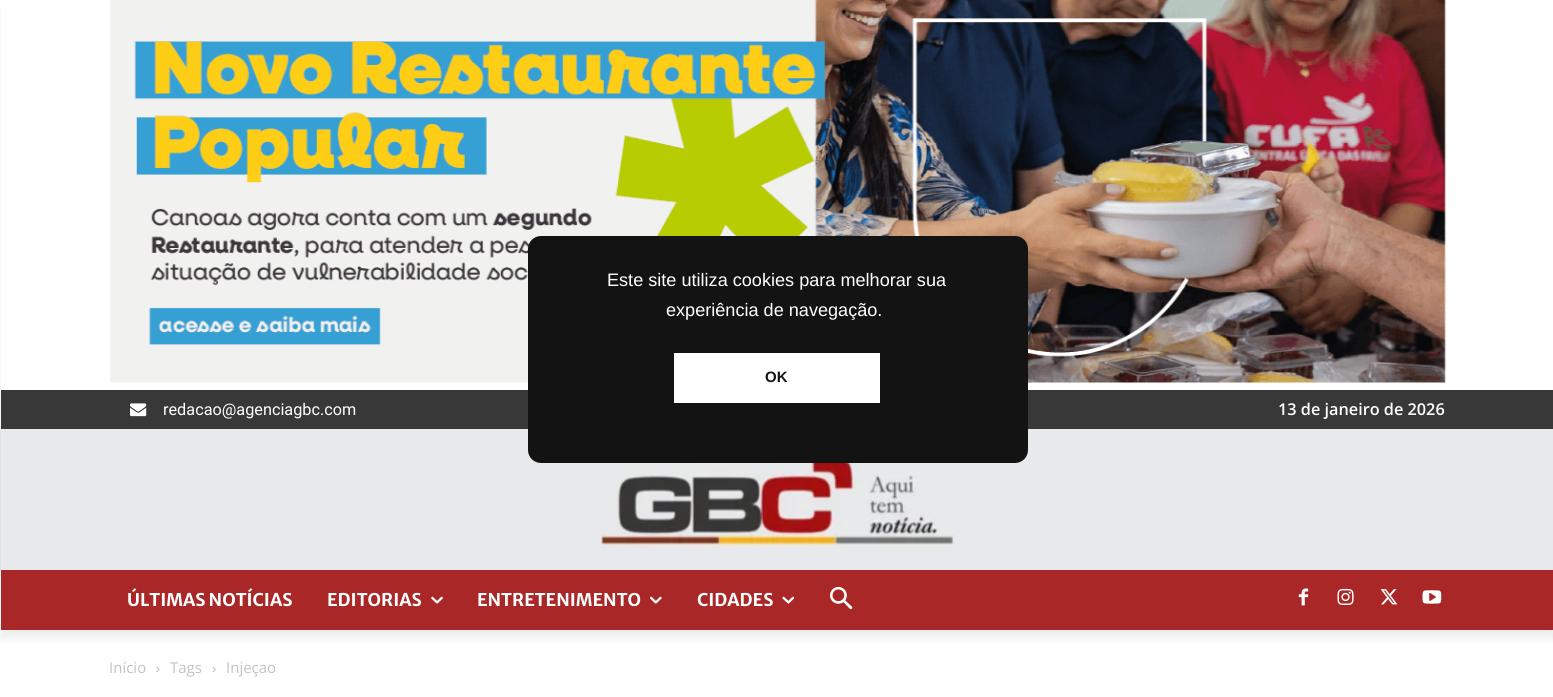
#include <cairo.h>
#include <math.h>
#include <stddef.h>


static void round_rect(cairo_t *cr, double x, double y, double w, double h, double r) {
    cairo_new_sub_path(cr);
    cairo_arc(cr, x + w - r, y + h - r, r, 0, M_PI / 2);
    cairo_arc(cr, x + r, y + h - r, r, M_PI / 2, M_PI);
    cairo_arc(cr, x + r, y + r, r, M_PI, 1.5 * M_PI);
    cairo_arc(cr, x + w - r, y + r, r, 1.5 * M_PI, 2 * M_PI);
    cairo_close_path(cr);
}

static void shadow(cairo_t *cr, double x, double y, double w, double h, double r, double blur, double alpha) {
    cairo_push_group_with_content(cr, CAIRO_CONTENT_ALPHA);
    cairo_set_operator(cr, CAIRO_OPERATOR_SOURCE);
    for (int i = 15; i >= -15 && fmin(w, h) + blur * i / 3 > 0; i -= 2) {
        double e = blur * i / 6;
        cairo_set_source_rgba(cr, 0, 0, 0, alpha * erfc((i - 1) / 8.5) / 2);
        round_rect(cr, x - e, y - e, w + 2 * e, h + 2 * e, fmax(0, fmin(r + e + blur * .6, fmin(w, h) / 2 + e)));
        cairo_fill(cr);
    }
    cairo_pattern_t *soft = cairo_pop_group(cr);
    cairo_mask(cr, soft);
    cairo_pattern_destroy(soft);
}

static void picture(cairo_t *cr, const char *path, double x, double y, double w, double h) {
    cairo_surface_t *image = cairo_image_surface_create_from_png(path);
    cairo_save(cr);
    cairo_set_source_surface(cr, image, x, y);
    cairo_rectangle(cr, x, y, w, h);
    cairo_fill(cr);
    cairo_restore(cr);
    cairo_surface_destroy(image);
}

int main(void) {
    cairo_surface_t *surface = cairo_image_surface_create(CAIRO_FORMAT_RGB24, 1553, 697);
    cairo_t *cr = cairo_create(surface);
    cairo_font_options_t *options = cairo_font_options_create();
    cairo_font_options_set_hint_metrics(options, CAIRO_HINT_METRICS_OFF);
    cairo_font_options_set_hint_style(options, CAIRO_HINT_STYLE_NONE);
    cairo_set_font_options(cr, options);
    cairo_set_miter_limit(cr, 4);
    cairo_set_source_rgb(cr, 1, 1, 1);
    cairo_paint(cr);
    picture(cr, "img1.png", 110, 0, 1336, 383);
    cairo_set_source_rgb(cr, 0.22, 0.22, 0.22);
    cairo_rectangle(cr, 1, 390, 1552, 39);
    cairo_fill(cr);
    picture(cr, "img2.png", 130, 403, 17, 14);
    cairo_set_source_rgb(cr, 0.91, 0.914, 0.922);
    cairo_rectangle(cr, 0, 429, 1553, 141);
    cairo_fill(cr);
    picture(cr, "img3.png", 599, 463, 356, 86);
    cairo_set_source_rgb(cr, 0.667, 0.153, 0.153);
    cairo_rectangle(cr, 1, 570, 1552, 60);
    cairo_fill(cr);
    picture(cr, "img8.png", 1298, 588, 11, 18);
    picture(cr, "img9.png", 1337, 588, 17, 17);
    picture(cr, "img10.png", 1380, 589, 18, 16);
    picture(cr, "img11.png", 1422, 590, 20, 14);
    cairo_save(cr);
    cairo_set_fill_rule(cr, CAIRO_FILL_RULE_EVEN_ODD);
    cairo_new_path(cr);
    cairo_move_to(cr, 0, 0);
    cairo_line_to(cr, 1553, 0);
    cairo_line_to(cr, 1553, 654);
    cairo_line_to(cr, 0, 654);
    cairo_close_path(cr);
    cairo_move_to(cr, 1, 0);
    cairo_line_to(cr, 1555, 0);
    cairo_line_to(cr, 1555, 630);
    cairo_line_to(cr, 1, 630);
    cairo_close_path(cr);
    cairo_clip(cr);
    cairo_set_source_rgb(cr, 0, 0, 0);
    shadow(cr, 1, 8, 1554, 630, 0, 5, 0.08);
    cairo_restore(cr);
    cairo_set_source_rgb(cr, 0.078, 0.078, 0.078);
    round_rect(cr, 528, 236, 500, 227, 13);
    cairo_fill(cr);
    cairo_select_font_face(cr, "Liberation Sans", CAIRO_FONT_SLANT_NORMAL, CAIRO_FONT_WEIGHT_NORMAL);
    cairo_set_font_size(cr, 18.1);
    cairo_set_source_rgb(cr, 1, 1, 1);
    cairo_move_to(cr, 607, 286);
    cairo_show_text(cr, "Este site utiliza cookies para melhorar sua");
    cairo_move_to(cr, 666, 316);
    cairo_show_text(cr, "experiência de navegação.");
    cairo_rectangle(cr, 674, 353, 206, 50);
    cairo_fill(cr);
    cairo_select_font_face(cr, "Liberation Sans", CAIRO_FONT_SLANT_NORMAL, CAIRO_FONT_WEIGHT_BOLD);
    cairo_set_font_size(cr, 15);
    cairo_set_source_rgb(cr, 0.078, 0.078, 0.078);
    cairo_move_to(cr, 765, 382);
    cairo_show_text(cr, "OK");
    cairo_select_font_face(cr, "Roboto", CAIRO_FONT_SLANT_NORMAL, CAIRO_FONT_WEIGHT_NORMAL);
    cairo_set_font_size(cr, 16.25);
    cairo_set_source_rgb(cr, 1, 1, 1);
    cairo_move_to(cr, 163, 415);
    cairo_show_text(cr, "redacao@agenciagbc.com");
    cairo_select_font_face(cr, "Open Sans SemiBold", CAIRO_FONT_SLANT_NORMAL, CAIRO_FONT_WEIGHT_NORMAL);
    cairo_move_to(cr, 1278, 415);
    cairo_show_text(cr, "13 de janeiro de 2026");
    cairo_select_font_face(cr, "Merriweather Sans", CAIRO_FONT_SLANT_NORMAL, CAIRO_FONT_WEIGHT_BOLD);
    cairo_set_font_size(cr, 17.5);
    cairo_move_to(cr, 127, 606);
    cairo_show_text(cr, "ÚLTIMAS NOTÍCIAS");
    cairo_move_to(cr, 327, 606);
    cairo_show_text(cr, "EDITORIAS");
    picture(cr, "img4.png", 431, 596, 12, 8);
    cairo_move_to(cr, 477, 606);
    cairo_show_text(cr, "ENTRETENIMENTO");
    picture(cr, "img5.png", 650, 596, 12, 8);
    cairo_move_to(cr, 697, 606);
    cairo_show_text(cr, "CIDADES");
    picture(cr, "img6.png", 782, 596, 13, 8);
    picture(cr, "img7.png", 830, 586, 23, 24);
    cairo_select_font_face(cr, "Open Sans", CAIRO_FONT_SLANT_NORMAL, CAIRO_FONT_WEIGHT_NORMAL);
    cairo_set_font_size(cr, 15);
    cairo_set_source_rgb(cr, 0.765, 0.765, 0.765);
    cairo_move_to(cr, 109, 673);
    cairo_show_text(cr, "Início");
    picture(cr, "img12.png", 156, 666, 4, 7);
    cairo_move_to(cr, 170, 673);
    cairo_show_text(cr, "Tags");
    picture(cr, "img13.png", 212, 666, 4, 7);
    cairo_move_to(cr, 226, 673);
    cairo_show_text(cr, "Injeçao");
    cairo_surface_write_to_png(surface, "page.png");
    cairo_font_options_destroy(options);
    cairo_destroy(cr);
    cairo_surface_destroy(surface);
    return 0;
}
